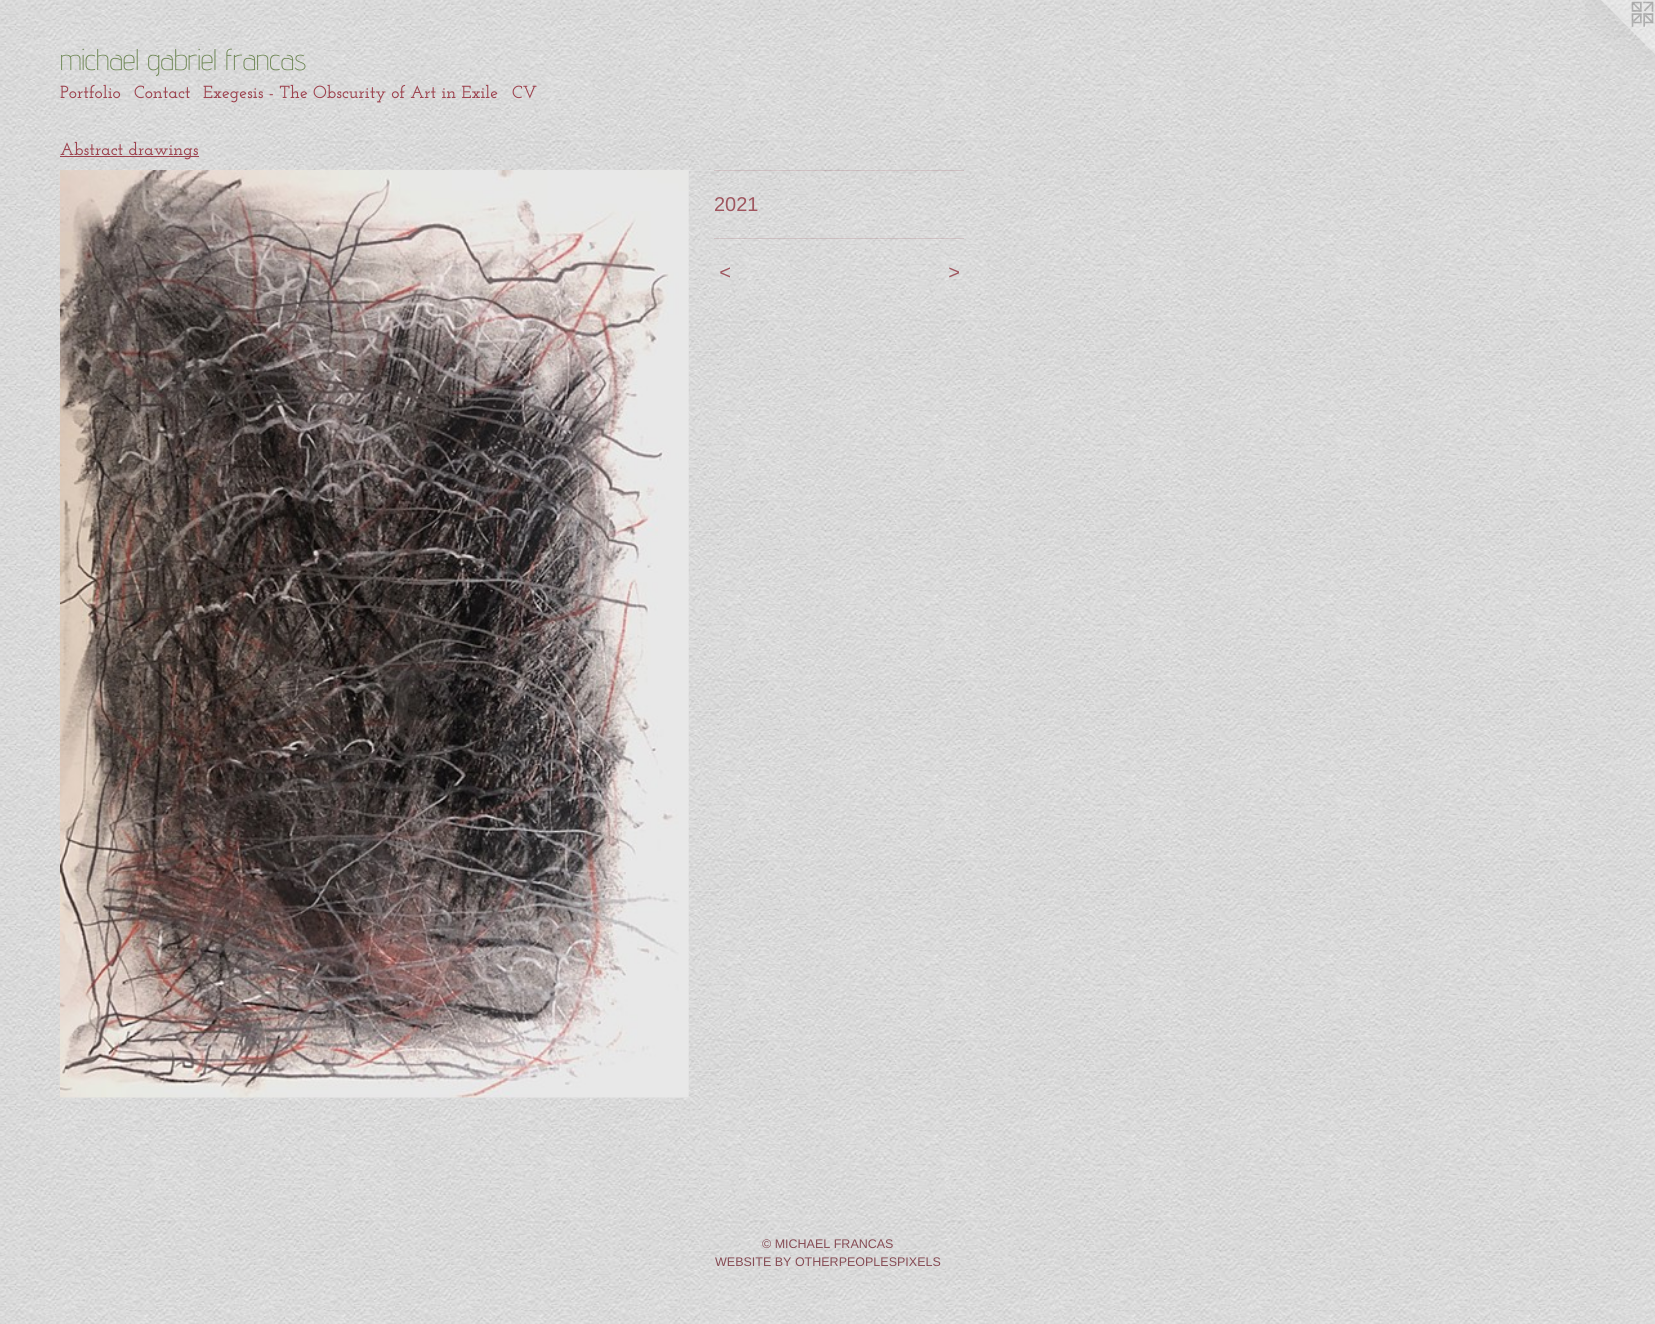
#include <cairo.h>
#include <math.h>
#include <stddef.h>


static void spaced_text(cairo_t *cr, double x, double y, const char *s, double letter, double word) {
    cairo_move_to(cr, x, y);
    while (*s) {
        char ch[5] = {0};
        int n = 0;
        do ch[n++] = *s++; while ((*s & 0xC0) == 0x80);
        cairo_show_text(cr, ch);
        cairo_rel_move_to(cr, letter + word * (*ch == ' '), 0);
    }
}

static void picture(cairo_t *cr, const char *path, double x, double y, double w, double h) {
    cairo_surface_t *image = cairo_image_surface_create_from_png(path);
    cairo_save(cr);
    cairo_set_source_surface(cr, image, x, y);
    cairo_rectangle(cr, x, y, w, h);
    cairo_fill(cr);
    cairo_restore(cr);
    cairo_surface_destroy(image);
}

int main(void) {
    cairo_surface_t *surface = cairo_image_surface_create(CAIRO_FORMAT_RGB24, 1655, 1324);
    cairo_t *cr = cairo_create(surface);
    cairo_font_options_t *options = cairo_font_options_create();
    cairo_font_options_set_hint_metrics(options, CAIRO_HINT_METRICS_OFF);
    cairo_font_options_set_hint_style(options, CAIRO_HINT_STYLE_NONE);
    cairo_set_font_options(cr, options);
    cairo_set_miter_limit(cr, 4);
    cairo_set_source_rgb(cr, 1, 1, 1);
    cairo_paint(cr);
    picture(cr, "img1.png", 0, 0, 1655, 1324);
    cairo_select_font_face(cr, "Advent Pro ExtraLight", CAIRO_FONT_SLANT_NORMAL, CAIRO_FONT_WEIGHT_NORMAL);
    cairo_set_font_size(cr, 30);
    cairo_set_source_rgb(cr, 0.42, 0.522, 0.318);
    cairo_move_to(cr, 60, 70);
    cairo_show_text(cr, "michael gabriel francas");
    picture(cr, "img2.png", 1585, 0, 70, 70);
    cairo_select_font_face(cr, "Josefin Slab Thin", CAIRO_FONT_SLANT_NORMAL, CAIRO_FONT_WEIGHT_NORMAL);
    cairo_set_font_size(cr, 17.5);
    cairo_set_source_rgb(cr, 0.616, 0.263, 0.31);
    cairo_move_to(cr, 60, 98);
    cairo_show_text(cr, "Portfolio");
    cairo_move_to(cr, 134, 98);
    cairo_show_text(cr, "Contact");
    cairo_move_to(cr, 203, 98);
    cairo_show_text(cr, "Exegesis - The Obscurity of Art in Exile");
    cairo_move_to(cr, 512, 98);
    cairo_show_text(cr, "CV");
    cairo_rectangle(cr, 60, 156, 139, 1);
    cairo_fill(cr);
    cairo_move_to(cr, 60, 155);
    cairo_show_text(cr, "Abstract drawings");
    picture(cr, "img3.png", 60, 170, 629, 928);
    cairo_set_source_rgba(cr, 0.624, 0.337, 0.373, 0.2);
    cairo_rectangle(cr, 714, 170, 250, 1);
    cairo_fill(cr);
    cairo_select_font_face(cr, "Liberation Sans", CAIRO_FONT_SLANT_NORMAL, CAIRO_FONT_WEIGHT_NORMAL);
    cairo_set_font_size(cr, 20);
    cairo_set_source_rgb(cr, 0.624, 0.337, 0.373);
    cairo_move_to(cr, 714, 211);
    cairo_show_text(cr, "2021");
    cairo_set_source_rgba(cr, 0.624, 0.337, 0.373, 0.2);
    cairo_rectangle(cr, 714, 238, 250, 1);
    cairo_fill(cr);
    cairo_select_font_face(cr, "Liberation Sans", CAIRO_FONT_SLANT_ITALIC, CAIRO_FONT_WEIGHT_NORMAL);
    cairo_set_source_rgb(cr, 0.624, 0.337, 0.373);
    spaced_text(cr, 719, 279, "<", 1, 0);
    spaced_text(cr, 948, 279, ">", 1, 0);
    cairo_select_font_face(cr, "Liberation Sans", CAIRO_FONT_SLANT_NORMAL, CAIRO_FONT_WEIGHT_NORMAL);
    cairo_set_font_size(cr, 12.5);
    cairo_set_source_rgb(cr, 0.525, 0.294, 0.329);
    cairo_move_to(cr, 762, 1248);
    cairo_show_text(cr, "© MICHAEL FRANCAS");
    cairo_move_to(cr, 715, 1266);
    cairo_show_text(cr, "WEBSITE BY OTHERPEOPLESPIXELS");
    cairo_surface_write_to_png(surface, "page.png");
    cairo_font_options_destroy(options);
    cairo_destroy(cr);
    cairo_surface_destroy(surface);
    return 0;
}
